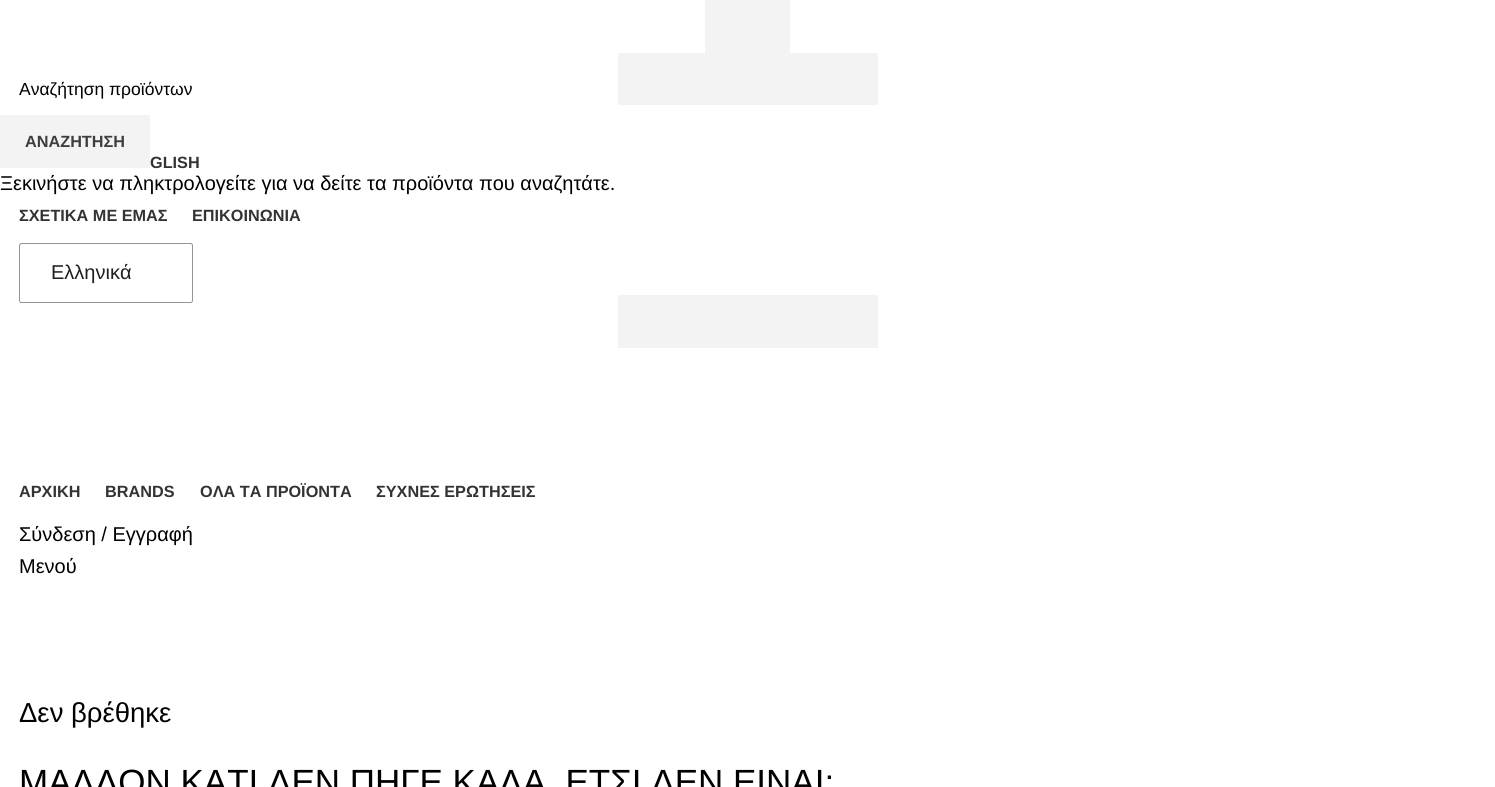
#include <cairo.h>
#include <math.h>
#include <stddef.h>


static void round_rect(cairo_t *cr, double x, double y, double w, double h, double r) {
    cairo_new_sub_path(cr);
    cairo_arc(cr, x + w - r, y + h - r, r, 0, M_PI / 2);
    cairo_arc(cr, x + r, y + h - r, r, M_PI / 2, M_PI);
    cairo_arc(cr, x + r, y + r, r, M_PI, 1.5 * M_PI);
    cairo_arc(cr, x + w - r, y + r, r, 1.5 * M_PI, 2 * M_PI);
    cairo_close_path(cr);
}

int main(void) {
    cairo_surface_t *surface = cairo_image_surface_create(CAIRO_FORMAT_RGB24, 1495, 787);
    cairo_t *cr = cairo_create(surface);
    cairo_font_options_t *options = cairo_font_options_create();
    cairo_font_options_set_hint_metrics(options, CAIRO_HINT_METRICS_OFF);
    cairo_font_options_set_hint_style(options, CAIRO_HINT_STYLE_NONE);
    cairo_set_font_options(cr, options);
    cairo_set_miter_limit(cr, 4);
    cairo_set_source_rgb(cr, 1, 1, 1);
    cairo_paint(cr);
    cairo_select_font_face(cr, "Liberation Sans", CAIRO_FONT_SLANT_NORMAL, CAIRO_FONT_WEIGHT_NORMAL);
    cairo_set_font_size(cr, 17.5);
    cairo_set_source_rgb(cr, 0, 0, 0);
    cairo_move_to(cr, 19, 95);
    cairo_show_text(cr, "Αναζήτηση προϊόντων");
    cairo_set_source_rgb(cr, 0.953, 0.953, 0.953);
    cairo_rectangle(cr, 0, 115, 150, 53);
    cairo_fill(cr);
    cairo_select_font_face(cr, "Liberation Sans", CAIRO_FONT_SLANT_NORMAL, CAIRO_FONT_WEIGHT_BOLD);
    cairo_set_font_size(cr, 16.25);
    cairo_set_source_rgb(cr, 0.243, 0.243, 0.243);
    cairo_move_to(cr, 25, 147);
    cairo_show_text(cr, "ΑΝΑΖΗΤΗΣΗ");
    cairo_select_font_face(cr, "Liberation Sans", CAIRO_FONT_SLANT_NORMAL, CAIRO_FONT_WEIGHT_NORMAL);
    cairo_set_font_size(cr, 20);
    cairo_set_source_rgb(cr, 0, 0, 0);
    cairo_move_to(cr, 0, 190);
    cairo_show_text(cr, "Ξεκινήστε να πληκτρολογείτε για να δείτε τα προϊόντα που αναζητάτε.");
    cairo_set_source_rgb(cr, 0.953, 0.953, 0.953);
    cairo_rectangle(cr, 705, 0, 85, 53);
    cairo_fill(cr);
    cairo_rectangle(cr, 618, 53, 260, 52);
    cairo_fill(cr);
    cairo_select_font_face(cr, "Liberation Sans", CAIRO_FONT_SLANT_NORMAL, CAIRO_FONT_WEIGHT_BOLD);
    cairo_set_font_size(cr, 16.25);
    cairo_set_source_rgb(cr, 0.2, 0.2, 0.2);
    cairo_move_to(cr, 150, 168);
    cairo_show_text(cr, "GLISH");
    cairo_move_to(cr, 19, 221);
    cairo_show_text(cr, "ΣΧΕΤΙΚΑ ΜΕ ΕΜΑΣ");
    cairo_move_to(cr, 192, 221);
    cairo_show_text(cr, "ΕΠΙΚΟΙΝΩΝΙΑ");
    round_rect(cr, 19.5, 243.5, 173, 59, 2);
    cairo_set_source_rgb(cr, 0.58, 0.58, 0.58);
    cairo_set_line_width(cr, 1);
    cairo_stroke(cr);
    cairo_select_font_face(cr, "Liberation Sans", CAIRO_FONT_SLANT_NORMAL, CAIRO_FONT_WEIGHT_NORMAL);
    cairo_set_font_size(cr, 20);
    cairo_set_source_rgb(cr, 0.118, 0.118, 0.118);
    cairo_move_to(cr, 51, 279);
    cairo_show_text(cr, "Ελληνικά");
    cairo_set_source_rgb(cr, 0.953, 0.953, 0.953);
    cairo_rectangle(cr, 618, 295, 260, 53);
    cairo_fill(cr);
    cairo_select_font_face(cr, "Liberation Sans", CAIRO_FONT_SLANT_NORMAL, CAIRO_FONT_WEIGHT_BOLD);
    cairo_set_font_size(cr, 16.25);
    cairo_set_source_rgb(cr, 0.2, 0.2, 0.2);
    cairo_move_to(cr, 19, 497);
    cairo_show_text(cr, "ΑΡΧΙΚΗ");
    cairo_move_to(cr, 105, 497);
    cairo_show_text(cr, "BRANDS");
    cairo_move_to(cr, 200, 497);
    cairo_show_text(cr, "ΟΛΑ ΤΑ ΠΡΟΪΟΝΤΑ");
    cairo_move_to(cr, 376, 497);
    cairo_show_text(cr, "ΣΥΧΝΕΣ ΕΡΩΤΗΣΕΙΣ");
    cairo_select_font_face(cr, "Liberation Sans", CAIRO_FONT_SLANT_NORMAL, CAIRO_FONT_WEIGHT_NORMAL);
    cairo_set_font_size(cr, 20);
    cairo_set_source_rgb(cr, 0, 0, 0);
    cairo_move_to(cr, 19, 541);
    cairo_show_text(cr, "Σύνδεση / Εγγραφή");
    cairo_move_to(cr, 19, 573);
    cairo_show_text(cr, "Μενού");
    cairo_set_font_size(cr, 27.5);
    cairo_move_to(cr, 19, 722);
    cairo_show_text(cr, "Δεν βρέθηκε");
    cairo_set_font_size(cr, 35);
    cairo_move_to(cr, 19, 794);
    cairo_show_text(cr, "ΜΑΛΛΟΝ ΚΑΤΙ ΔΕΝ ΠΗΓΕ ΚΑΛΑ, ΕΤΣΙ ΔΕΝ ΕΙΝΑΙ;");
    cairo_surface_write_to_png(surface, "page.png");
    cairo_font_options_destroy(options);
    cairo_destroy(cr);
    cairo_surface_destroy(surface);
    return 0;
}
